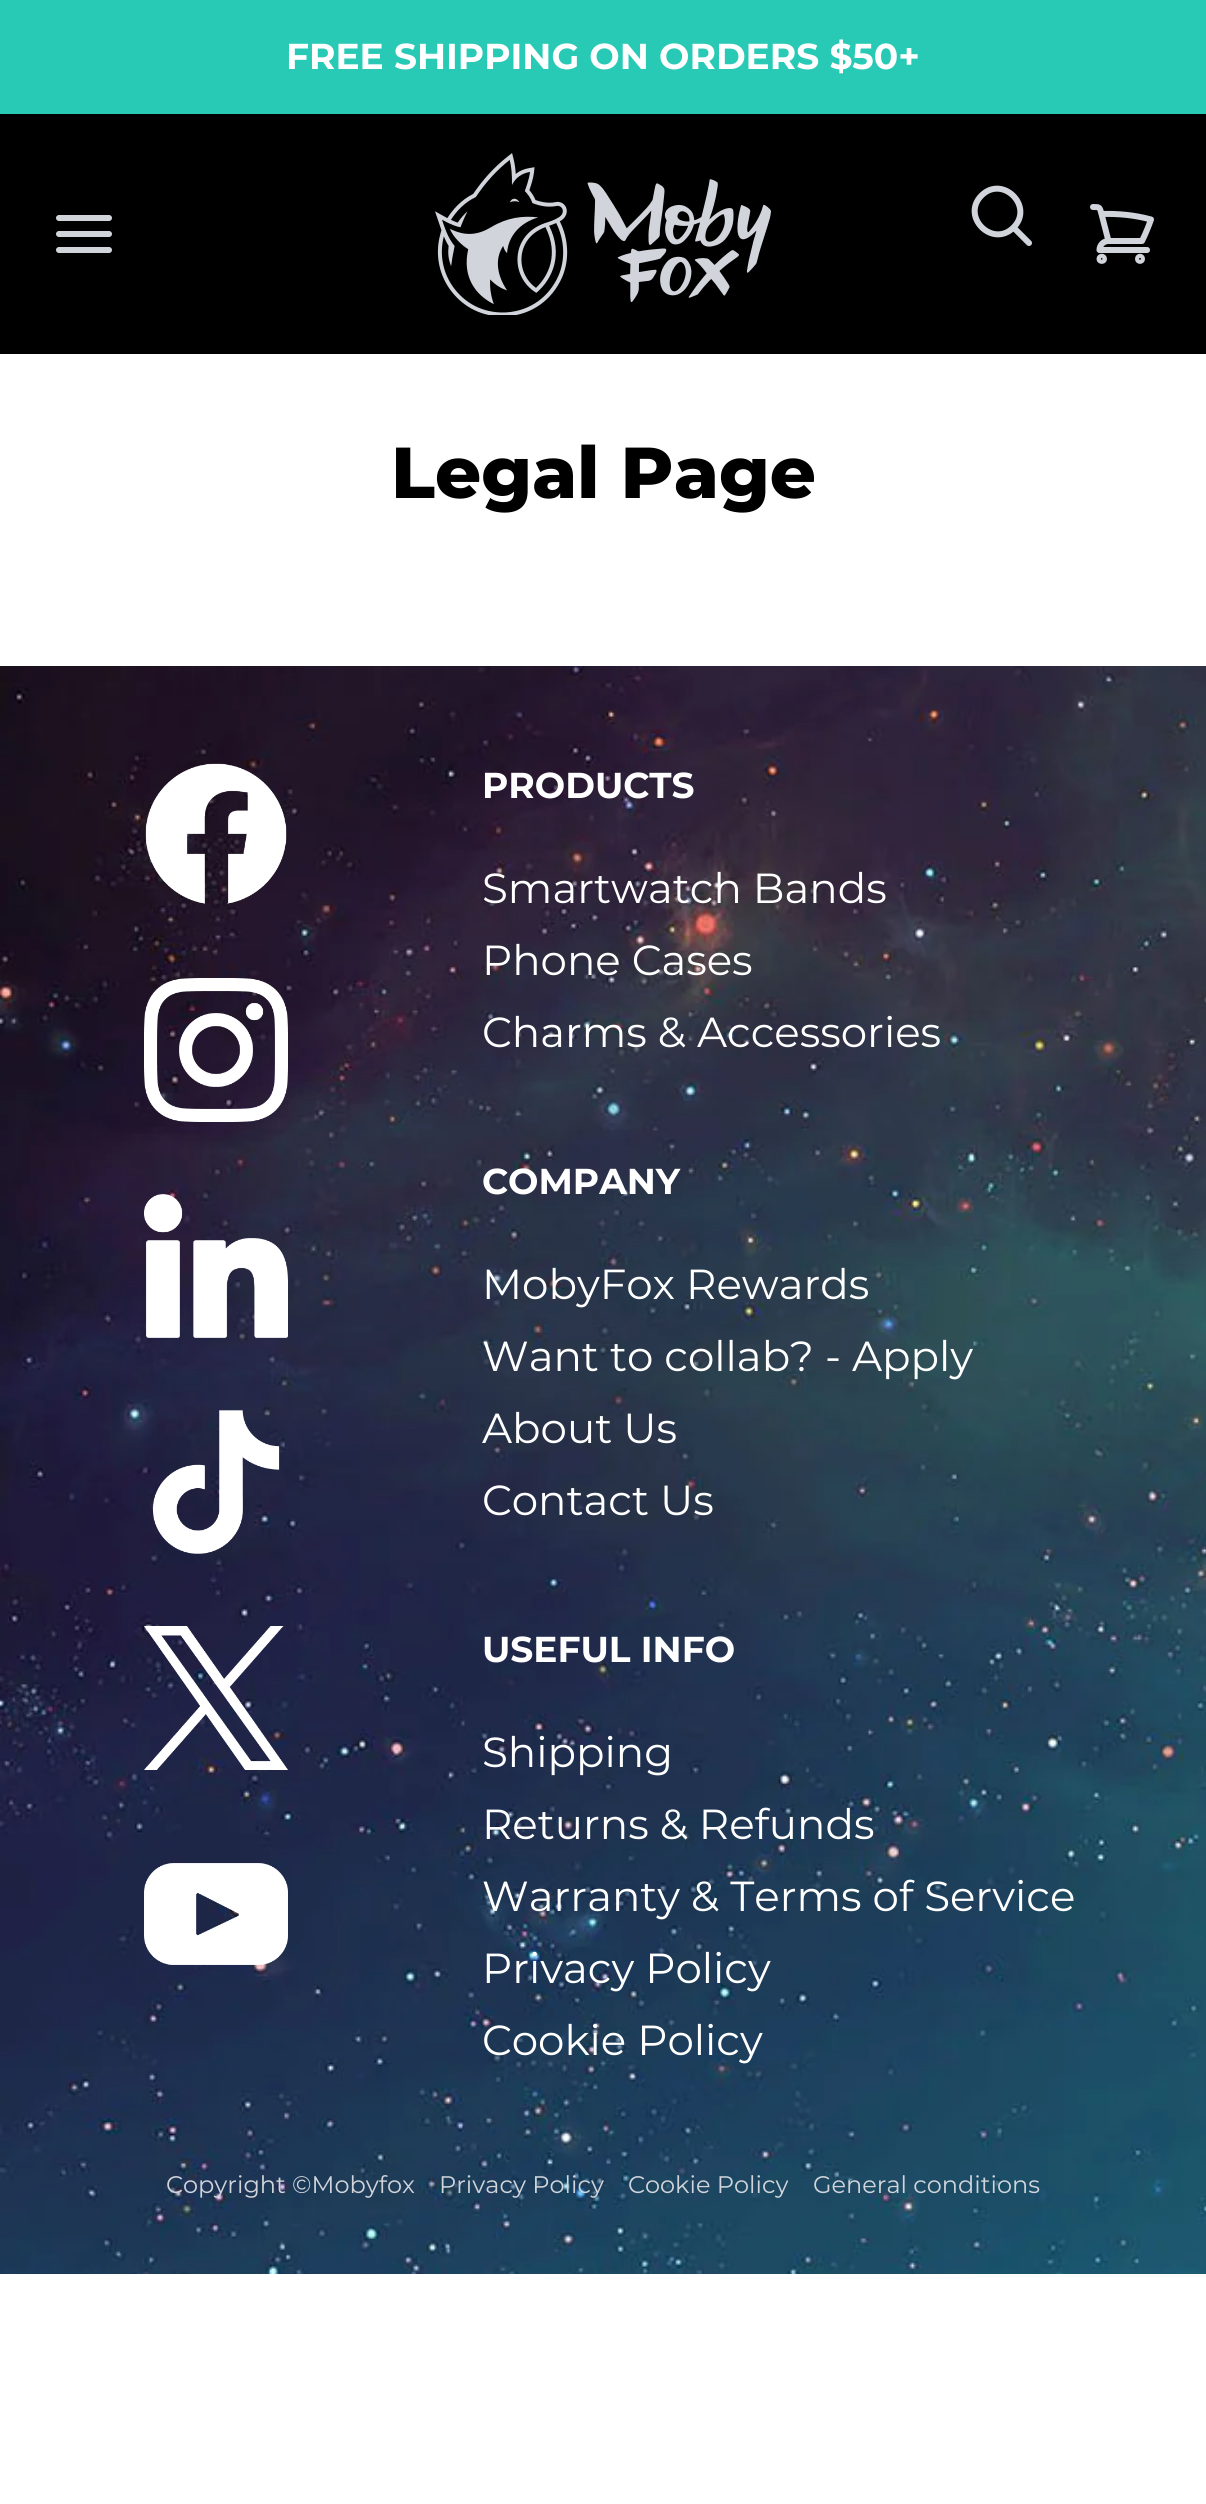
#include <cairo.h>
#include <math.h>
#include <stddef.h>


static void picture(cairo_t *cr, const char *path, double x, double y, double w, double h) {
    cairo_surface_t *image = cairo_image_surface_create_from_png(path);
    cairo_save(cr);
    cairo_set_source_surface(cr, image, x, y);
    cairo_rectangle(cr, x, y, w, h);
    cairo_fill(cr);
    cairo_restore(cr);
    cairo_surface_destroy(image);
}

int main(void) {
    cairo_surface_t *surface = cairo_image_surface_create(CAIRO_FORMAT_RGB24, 1206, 2504);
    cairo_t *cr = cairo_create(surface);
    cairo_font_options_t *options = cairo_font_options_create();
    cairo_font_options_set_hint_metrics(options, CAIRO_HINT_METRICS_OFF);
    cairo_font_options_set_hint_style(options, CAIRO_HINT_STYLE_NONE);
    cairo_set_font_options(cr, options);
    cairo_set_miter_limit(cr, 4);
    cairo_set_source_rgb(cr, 1, 1, 1);
    cairo_paint(cr);
    cairo_set_source_rgb(cr, 0, 0, 0);
    cairo_rectangle(cr, 0, 114, 1206, 240);
    cairo_fill(cr);
    cairo_set_source_rgb(cr, 0.157, 0.792, 0.71);
    cairo_rectangle(cr, 0, 0, 1206, 114);
    cairo_fill(cr);
    cairo_select_font_face(cr, "Montserrat", CAIRO_FONT_SLANT_NORMAL, CAIRO_FONT_WEIGHT_BOLD);
    cairo_set_font_size(cr, 36);
    cairo_set_source_rgb(cr, 1, 1, 1);
    cairo_move_to(cr, 286, 69);
    cairo_show_text(cr, "FREE SHIPPING ON ORDERS $50+");
    cairo_new_path(cr);
    cairo_move_to(cr, 59, 218);
    cairo_line_to(cr, 109, 218);
    cairo_move_to(cr, 59, 234);
    cairo_line_to(cr, 109, 234);
    cairo_move_to(cr, 59, 250);
    cairo_line_to(cr, 109, 250);
    cairo_set_source_rgb(cr, 0.82, 0.835, 0.859);
    cairo_set_line_width(cr, 6);
    cairo_set_line_cap(cr, CAIRO_LINE_CAP_ROUND);
    cairo_set_line_join(cr, CAIRO_LINE_JOIN_ROUND);
    cairo_stroke(cr);
    picture(cr, "img1.png", 435, 153, 336, 162);
    cairo_new_path(cr);
    cairo_move_to(cr, 1029, 243);
    cairo_line_to(cr, 1013.5, 227.5);
    cairo_move_to(cr, 1013.5, 227.5);
    cairo_curve_to(cr, 1034.5, 206.5, 1002.5, 174.5, 981.5, 195.5);
    cairo_curve_to(cr, 960.5, 216.5, 992.5, 248.5, 1013.5, 227.5);
    cairo_close_path(cr);
    cairo_stroke(cr);
    cairo_new_path(cr);
    cairo_move_to(cr, 1093, 207);
    cairo_curve_to(cr, 1100, 207, 1099.5, 207, 1101.5, 214);
    cairo_move_to(cr, 1108.5, 241);
    cairo_curve_to(cr, 1103.5, 241, 1099.5, 245, 1099.5, 250);
    cairo_line_to(cr, 1147, 250);
    cairo_move_to(cr, 1108.5, 241);
    cairo_line_to(cr, 1142, 241);
    cairo_curve_to(cr, 1145.5, 234, 1148.5, 226.5, 1151, 219.5);
    cairo_curve_to(cr, 1134.5, 215, 1118, 213.5, 1101.5, 214);
    cairo_move_to(cr, 1108.5, 241);
    cairo_line_to(cr, 1101.5, 214);
    cairo_move_to(cr, 1104, 259);
    cairo_curve_to(cr, 1104, 261.5, 1099.5, 261.5, 1099.5, 259);
    cairo_curve_to(cr, 1099.5, 256, 1104, 256, 1104, 259);
    cairo_close_path(cr);
    cairo_move_to(cr, 1142, 259);
    cairo_curve_to(cr, 1142, 261.5, 1138, 261.5, 1138, 259);
    cairo_curve_to(cr, 1138, 256, 1142, 256, 1142, 259);
    cairo_close_path(cr);
    cairo_stroke(cr);
    cairo_select_font_face(cr, "Montserrat ExtraBold", CAIRO_FONT_SLANT_NORMAL, CAIRO_FONT_WEIGHT_NORMAL);
    cairo_set_font_size(cr, 72);
    cairo_set_source_rgb(cr, 0, 0, 0);
    cairo_move_to(cr, 391, 498);
    cairo_show_text(cr, "Legal Page");
    picture(cr, "img2.png", 0, 666, 1206, 1608);
    picture(cr, "img3.png", 145, 763, 142, 141);
    picture(cr, "img4.png", 144, 978, 144, 144);
    picture(cr, "img5.png", 144, 1194, 144, 144);
    picture(cr, "img6.png", 152, 1410, 128, 144);
    picture(cr, "img7.png", 144, 1626, 144, 144);
    picture(cr, "img8.png", 144, 1863, 144, 102);
    cairo_select_font_face(cr, "Montserrat", CAIRO_FONT_SLANT_NORMAL, CAIRO_FONT_WEIGHT_BOLD);
    cairo_set_font_size(cr, 36);
    cairo_set_source_rgb(cr, 1, 1, 1);
    cairo_move_to(cr, 482, 798);
    cairo_show_text(cr, "PRODUCTS");
    cairo_select_font_face(cr, "Montserrat", CAIRO_FONT_SLANT_NORMAL, CAIRO_FONT_WEIGHT_NORMAL);
    cairo_set_font_size(cr, 42);
    cairo_move_to(cr, 482, 903);
    cairo_show_text(cr, "Smartwatch Bands");
    cairo_move_to(cr, 482, 975);
    cairo_show_text(cr, "Phone Cases");
    cairo_move_to(cr, 482, 1047);
    cairo_show_text(cr, "Charms & Accessories");
    cairo_select_font_face(cr, "Montserrat", CAIRO_FONT_SLANT_NORMAL, CAIRO_FONT_WEIGHT_BOLD);
    cairo_set_font_size(cr, 36);
    cairo_move_to(cr, 482, 1194);
    cairo_show_text(cr, "COMPANY");
    cairo_select_font_face(cr, "Montserrat", CAIRO_FONT_SLANT_NORMAL, CAIRO_FONT_WEIGHT_NORMAL);
    cairo_set_font_size(cr, 42);
    cairo_move_to(cr, 482, 1299);
    cairo_show_text(cr, "MobyFox Rewards");
    cairo_move_to(cr, 482, 1371);
    cairo_show_text(cr, "Want to collab? - Apply");
    cairo_move_to(cr, 482, 1443);
    cairo_show_text(cr, "About Us");
    cairo_move_to(cr, 482, 1515);
    cairo_show_text(cr, "Contact Us");
    cairo_select_font_face(cr, "Montserrat", CAIRO_FONT_SLANT_NORMAL, CAIRO_FONT_WEIGHT_BOLD);
    cairo_set_font_size(cr, 36);
    cairo_move_to(cr, 482, 1662);
    cairo_show_text(cr, "USEFUL INFO");
    cairo_select_font_face(cr, "Montserrat", CAIRO_FONT_SLANT_NORMAL, CAIRO_FONT_WEIGHT_NORMAL);
    cairo_set_font_size(cr, 42);
    cairo_move_to(cr, 482, 1767);
    cairo_show_text(cr, "Shipping");
    cairo_move_to(cr, 482, 1839);
    cairo_show_text(cr, "Returns & Refunds");
    cairo_move_to(cr, 482, 1911);
    cairo_show_text(cr, "Warranty & Terms of Service");
    cairo_move_to(cr, 482, 1983);
    cairo_show_text(cr, "Privacy Policy");
    cairo_move_to(cr, 482, 2055);
    cairo_show_text(cr, "Cookie Policy");
    cairo_set_font_size(cr, 24);
    cairo_set_source_rgb(cr, 0.82, 0.835, 0.859);
    cairo_move_to(cr, 166, 2193);
    cairo_show_text(cr, "Copyright ©Mobyfox");
    cairo_move_to(cr, 439, 2193);
    cairo_show_text(cr, "Privacy Policy");
    cairo_move_to(cr, 628, 2193);
    cairo_show_text(cr, "Cookie Policy");
    cairo_move_to(cr, 813, 2193);
    cairo_show_text(cr, "General conditions");
    cairo_surface_write_to_png(surface, "page.png");
    cairo_font_options_destroy(options);
    cairo_destroy(cr);
    cairo_surface_destroy(surface);
    return 0;
}
